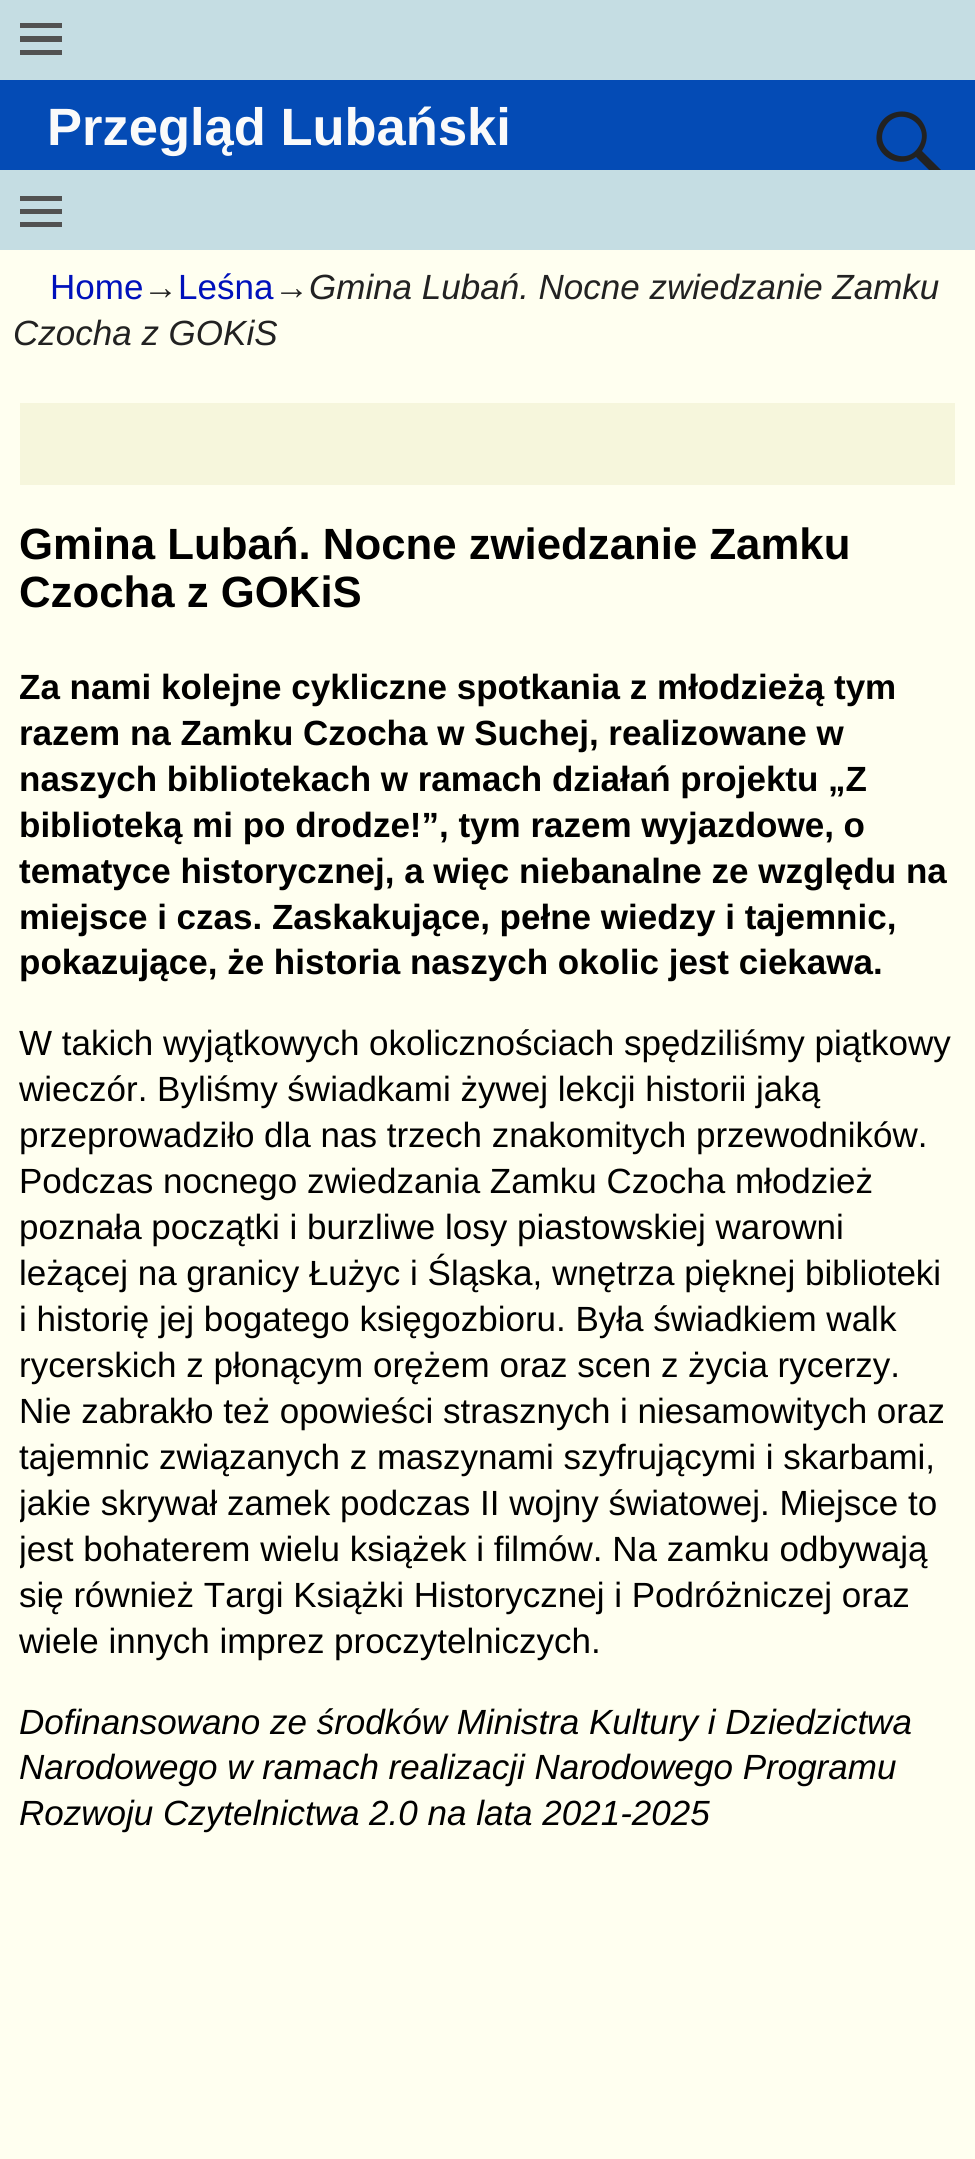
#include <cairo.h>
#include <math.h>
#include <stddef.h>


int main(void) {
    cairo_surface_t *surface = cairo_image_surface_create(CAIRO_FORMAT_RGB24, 975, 2159);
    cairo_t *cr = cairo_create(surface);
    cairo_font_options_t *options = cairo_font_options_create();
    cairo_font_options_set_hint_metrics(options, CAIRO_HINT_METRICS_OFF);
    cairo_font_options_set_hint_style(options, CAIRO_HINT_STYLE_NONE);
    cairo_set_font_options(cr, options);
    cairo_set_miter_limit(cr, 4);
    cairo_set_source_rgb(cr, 0.016, 0.294, 0.71);
    cairo_paint(cr);
    cairo_set_source_rgb(cr, 0.773, 0.867, 0.89);
    cairo_rectangle(cr, 0, 0, 975, 80);
    cairo_fill(cr);
    cairo_set_source_rgb(cr, 0.322, 0.322, 0.322);
    cairo_new_path(cr);
    cairo_move_to(cr, 20, 55);
    cairo_line_to(cr, 20, 50);
    cairo_line_to(cr, 62, 50);
    cairo_line_to(cr, 62, 55);
    cairo_close_path(cr);
    cairo_move_to(cr, 20, 23);
    cairo_line_to(cr, 62, 23);
    cairo_line_to(cr, 62, 28);
    cairo_line_to(cr, 20, 28);
    cairo_close_path(cr);
    cairo_move_to(cr, 20, 42);
    cairo_line_to(cr, 20, 36);
    cairo_line_to(cr, 62, 36);
    cairo_line_to(cr, 62, 42);
    cairo_close_path(cr);
    cairo_fill(cr);
    cairo_select_font_face(cr, "Liberation Sans", CAIRO_FONT_SLANT_NORMAL, CAIRO_FONT_WEIGHT_BOLD);
    cairo_set_font_size(cr, 52.5);
    cairo_set_source_rgb(cr, 0.98, 0.98, 0.98);
    cairo_move_to(cr, 47, 145);
    cairo_show_text(cr, "Przegląd Lubański");
    cairo_set_source_rgb(cr, 0.133, 0.133, 0.133);
    cairo_new_path(cr);
    cairo_move_to(cr, 944, 173);
    cairo_line_to(cr, 938, 179);
    cairo_line_to(cr, 916, 157);
    cairo_curve_to(cr, 904, 166, 886, 162, 879, 148);
    cairo_curve_to(cr, 876, 143, 876, 137, 877, 132);
    cairo_curve_to(cr, 882, 106, 919, 104, 926, 130);
    cairo_curve_to(cr, 928, 137, 926, 145, 922, 151);
    cairo_close_path(cr);
    cairo_move_to(cr, 885, 127);
    cairo_curve_to(cr, 872, 149, 906, 169, 919, 146);
    cairo_curve_to(cr, 932, 124, 898, 104, 885, 127);
    cairo_close_path(cr);
    cairo_fill(cr);
    cairo_set_source_rgb(cr, 0.773, 0.867, 0.89);
    cairo_rectangle(cr, 0, 170, 975, 80);
    cairo_fill(cr);
    cairo_set_source_rgb(cr, 0.322, 0.322, 0.322);
    cairo_new_path(cr);
    cairo_move_to(cr, 20, 227);
    cairo_line_to(cr, 20, 222);
    cairo_line_to(cr, 62, 222);
    cairo_line_to(cr, 62, 227);
    cairo_close_path(cr);
    cairo_move_to(cr, 20, 196);
    cairo_line_to(cr, 62, 196);
    cairo_line_to(cr, 62, 201);
    cairo_line_to(cr, 20, 201);
    cairo_close_path(cr);
    cairo_move_to(cr, 20, 214);
    cairo_line_to(cr, 20, 209);
    cairo_line_to(cr, 62, 209);
    cairo_line_to(cr, 62, 214);
    cairo_close_path(cr);
    cairo_fill(cr);
    cairo_set_source_rgb(cr, 1, 1, 0.941);
    cairo_rectangle(cr, 0, 250, 975, 1909);
    cairo_fill(cr);
    cairo_select_font_face(cr, "Liberation Sans", CAIRO_FONT_SLANT_NORMAL, CAIRO_FONT_WEIGHT_NORMAL);
    cairo_set_font_size(cr, 35);
    cairo_set_source_rgb(cr, 0, 0.067, 0.733);
    cairo_move_to(cr, 50, 299);
    cairo_show_text(cr, "Home");
    cairo_set_source_rgb(cr, 0.133, 0.133, 0.133);
    cairo_move_to(cr, 143, 299);
    cairo_show_text(cr, "→");
    cairo_set_source_rgb(cr, 0, 0.067, 0.733);
    cairo_move_to(cr, 178, 299);
    cairo_show_text(cr, "Leśna");
    cairo_set_source_rgb(cr, 0.133, 0.133, 0.133);
    cairo_move_to(cr, 274, 299);
    cairo_show_text(cr, "→");
    cairo_select_font_face(cr, "Liberation Sans", CAIRO_FONT_SLANT_ITALIC, CAIRO_FONT_WEIGHT_NORMAL);
    cairo_move_to(cr, 309, 299);
    cairo_show_text(cr, "Gmina Lubań. Nocne zwiedzanie Zamku");
    cairo_move_to(cr, 13, 345);
    cairo_show_text(cr, "Czocha z GOKiS");
    cairo_set_source_rgb(cr, 0.961, 0.961, 0.863);
    cairo_rectangle(cr, 20, 403, 935, 82);
    cairo_fill(cr);
    cairo_select_font_face(cr, "Liberation Sans", CAIRO_FONT_SLANT_NORMAL, CAIRO_FONT_WEIGHT_BOLD);
    cairo_set_font_size(cr, 43.75);
    cairo_set_source_rgb(cr, 0, 0, 0);
    cairo_move_to(cr, 19, 559);
    cairo_show_text(cr, "Gmina Lubań. Nocne zwiedzanie Zamku");
    cairo_move_to(cr, 19, 607);
    cairo_show_text(cr, "Czocha z GOKiS");
    cairo_set_font_size(cr, 35);
    cairo_move_to(cr, 19, 699);
    cairo_show_text(cr, "Za nami kolejne cykliczne spotkania z młodzieżą tym");
    cairo_move_to(cr, 19, 745);
    cairo_show_text(cr, "razem na Zamku Czocha w Suchej, realizowane w");
    cairo_move_to(cr, 19, 791);
    cairo_show_text(cr, "naszych bibliotekach w ramach działań projektu „Z");
    cairo_move_to(cr, 19, 837);
    cairo_show_text(cr, "biblioteką mi po drodze!”, tym razem wyjazdowe, o");
    cairo_move_to(cr, 19, 883);
    cairo_show_text(cr, "tematyce historycznej, a więc niebanalne ze względu na");
    cairo_move_to(cr, 19, 929);
    cairo_show_text(cr, "miejsce i czas. Zaskakujące, pełne wiedzy i tajemnic,");
    cairo_move_to(cr, 19, 974);
    cairo_show_text(cr, "pokazujące, że historia naszych okolic jest ciekawa.");
    cairo_select_font_face(cr, "Liberation Sans", CAIRO_FONT_SLANT_NORMAL, CAIRO_FONT_WEIGHT_NORMAL);
    cairo_move_to(cr, 19, 1055);
    cairo_show_text(cr, "W takich wyjątkowych okolicznościach spędziliśmy piątkowy");
    cairo_move_to(cr, 19, 1101);
    cairo_show_text(cr, "wieczór. Byliśmy świadkami żywej lekcji historii jaką");
    cairo_move_to(cr, 19, 1147);
    cairo_show_text(cr, "przeprowadziło dla nas trzech znakomitych przewodników.");
    cairo_move_to(cr, 19, 1193);
    cairo_show_text(cr, "Podczas nocnego zwiedzania Zamku Czocha młodzież");
    cairo_move_to(cr, 19, 1239);
    cairo_show_text(cr, "poznała początki i burzliwe losy piastowskiej warowni");
    cairo_move_to(cr, 19, 1285);
    cairo_show_text(cr, "leżącej na granicy Łużyc i Śląska, wnętrza pięknej biblioteki");
    cairo_move_to(cr, 19, 1331);
    cairo_show_text(cr, "i historię jej bogatego księgozbioru. Była świadkiem walk");
    cairo_move_to(cr, 19, 1377);
    cairo_show_text(cr, "rycerskich z płonącym orężem oraz scen z życia rycerzy.");
    cairo_move_to(cr, 19, 1423);
    cairo_show_text(cr, "Nie zabrakło też opowieści strasznych i niesamowitych oraz");
    cairo_move_to(cr, 19, 1469);
    cairo_show_text(cr, "tajemnic związanych z maszynami szyfrującymi i skarbami,");
    cairo_save(cr);
    cairo_rectangle(cr, 20, 510, 935, 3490);
    cairo_clip(cr);
    cairo_move_to(cr, 19, 1515);
    cairo_show_text(cr, "jakie skrywał zamek podczas II wojny światowej. Miejsce to");
    cairo_move_to(cr, 19, 1561);
    cairo_show_text(cr, "jest bohaterem wielu książek i filmów. Na zamku odbywają");
    cairo_restore(cr);
    cairo_move_to(cr, 19, 1607);
    cairo_show_text(cr, "się również Targi Książki Historycznej i Podróżniczej oraz");
    cairo_move_to(cr, 19, 1653);
    cairo_show_text(cr, "wiele innych imprez proczytelniczych.");
    cairo_select_font_face(cr, "Liberation Sans", CAIRO_FONT_SLANT_ITALIC, CAIRO_FONT_WEIGHT_NORMAL);
    cairo_move_to(cr, 19, 1734);
    cairo_show_text(cr, "Dofinansowano ze środków Ministra Kultury i Dziedzictwa");
    cairo_move_to(cr, 19, 1779);
    cairo_show_text(cr, "Narodowego w ramach realizacji Narodowego Programu");
    cairo_move_to(cr, 19, 1825);
    cairo_show_text(cr, "Rozwoju Czytelnictwa 2.0 na lata 2021-2025");
    cairo_surface_write_to_png(surface, "page.png");
    cairo_font_options_destroy(options);
    cairo_destroy(cr);
    cairo_surface_destroy(surface);
    return 0;
}
